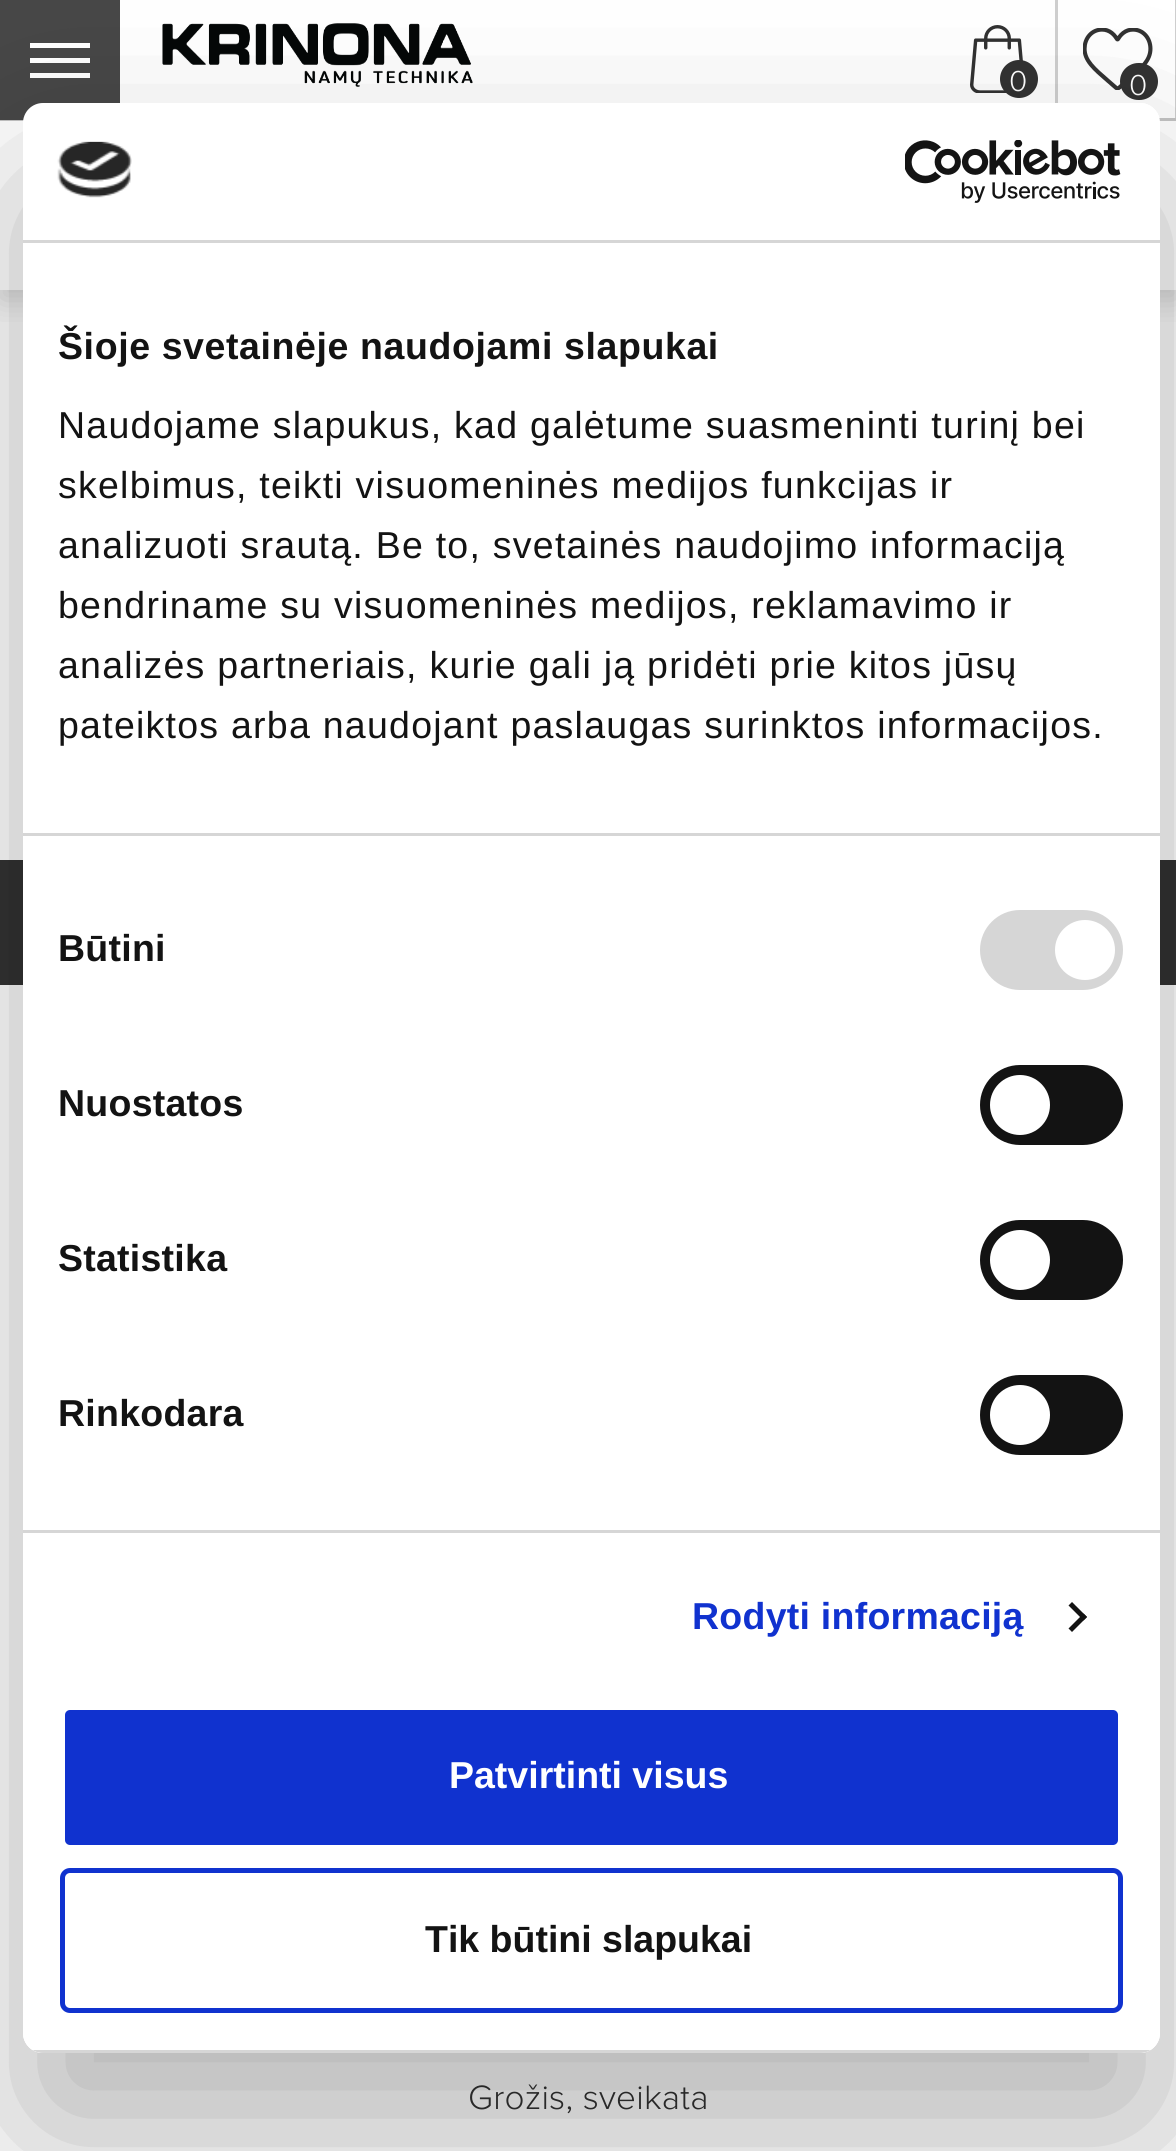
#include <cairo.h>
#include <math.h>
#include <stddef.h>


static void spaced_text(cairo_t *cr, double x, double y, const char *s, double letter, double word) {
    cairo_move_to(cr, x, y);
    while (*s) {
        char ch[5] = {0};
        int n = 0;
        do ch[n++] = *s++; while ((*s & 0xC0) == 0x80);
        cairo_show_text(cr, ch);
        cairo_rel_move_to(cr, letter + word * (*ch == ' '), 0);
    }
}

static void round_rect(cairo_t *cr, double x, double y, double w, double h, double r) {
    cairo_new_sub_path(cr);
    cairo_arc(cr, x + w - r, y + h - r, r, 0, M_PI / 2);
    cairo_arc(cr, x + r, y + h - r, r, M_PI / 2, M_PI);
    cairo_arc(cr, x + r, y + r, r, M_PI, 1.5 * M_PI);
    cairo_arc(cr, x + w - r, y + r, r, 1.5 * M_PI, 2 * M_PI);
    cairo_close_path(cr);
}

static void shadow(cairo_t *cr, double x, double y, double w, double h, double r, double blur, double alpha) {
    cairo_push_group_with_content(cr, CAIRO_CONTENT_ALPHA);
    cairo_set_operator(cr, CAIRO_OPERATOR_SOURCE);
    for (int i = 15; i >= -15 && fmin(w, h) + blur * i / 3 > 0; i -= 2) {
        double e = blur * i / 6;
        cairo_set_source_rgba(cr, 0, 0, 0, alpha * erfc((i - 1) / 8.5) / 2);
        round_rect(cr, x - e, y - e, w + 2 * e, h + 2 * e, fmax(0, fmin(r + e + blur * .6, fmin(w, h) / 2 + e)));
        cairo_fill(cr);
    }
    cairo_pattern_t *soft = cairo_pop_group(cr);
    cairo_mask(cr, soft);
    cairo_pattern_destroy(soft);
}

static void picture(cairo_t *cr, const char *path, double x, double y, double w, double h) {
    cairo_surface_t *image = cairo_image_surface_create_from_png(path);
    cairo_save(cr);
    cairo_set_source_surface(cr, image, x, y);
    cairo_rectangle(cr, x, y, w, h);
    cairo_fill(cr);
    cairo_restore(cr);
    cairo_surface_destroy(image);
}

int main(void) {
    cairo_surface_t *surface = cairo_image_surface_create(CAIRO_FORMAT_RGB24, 1176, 2151);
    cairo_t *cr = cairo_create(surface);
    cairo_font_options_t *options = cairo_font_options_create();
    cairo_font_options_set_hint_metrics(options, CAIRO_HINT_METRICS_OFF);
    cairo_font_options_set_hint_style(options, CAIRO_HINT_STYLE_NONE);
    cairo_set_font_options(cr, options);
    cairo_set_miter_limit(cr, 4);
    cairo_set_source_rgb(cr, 1, 1, 1);
    cairo_paint(cr);
    cairo_save(cr);
    cairo_rectangle(cr, 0, 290, 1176, 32);
    cairo_clip(cr);
    cairo_set_source_rgb(cr, 0.455, 0.455, 0.455);
    shadow(cr, 0, 10, 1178, 290, 0, 15, 0.3);
    cairo_restore(cr);
    cairo_set_source_rgb(cr, 0.769, 0.769, 0.769);
    cairo_rectangle(cr, 0, 118, 1176, 3);
    cairo_fill(cr);
    cairo_set_source_rgb(cr, 0.278, 0.278, 0.278);
    cairo_rectangle(cr, 0, 0, 120, 120);
    cairo_fill(cr);
    cairo_set_source_rgb(cr, 1, 1, 1);
    cairo_rectangle(cr, 30, 58, 60, 5);
    cairo_fill(cr);
    cairo_rectangle(cr, 30, 43, 60, 5);
    cairo_fill(cr);
    cairo_rectangle(cr, 30, 73, 60, 5);
    cairo_fill(cr);
    picture(cr, "img1.png", 162, 23, 311, 64);
    picture(cr, "img2.png", 970, 25, 53, 68);
    cairo_set_source_rgb(cr, 0.196, 0.196, 0.196);
    cairo_arc(cr, 1019, 79, 19, 0, 2 * M_PI);
    cairo_fill(cr);
    cairo_select_font_face(cr, "Proxima Nova Light", CAIRO_FONT_SLANT_NORMAL, CAIRO_FONT_WEIGHT_NORMAL);
    cairo_set_font_size(cr, 30);
    cairo_set_source_rgb(cr, 1, 1, 1);
    spaced_text(cr, 1009, 91, "0", 0.25, 0);
    cairo_set_source_rgb(cr, 0.812, 0.812, 0.812);
    cairo_rectangle(cr, 1175, 0, 1, 118);
    cairo_fill(cr);
    cairo_rectangle(cr, 1055, 0, 3, 103);
    cairo_fill(cr);
    picture(cr, "img3.png", 1083, 28, 70, 62);
    cairo_set_source_rgb(cr, 0.196, 0.196, 0.196);
    round_rect(cr, 1120, 63, 38, 37, 18.5);
    cairo_fill(cr);
    cairo_set_source_rgb(cr, 1, 1, 1);
    spaced_text(cr, 1129, 95, "0", 0.25, 0);
    cairo_set_source_rgb(cr, 0.196, 0.196, 0.196);
    cairo_rectangle(cr, 0, 860, 1176, 125);
    cairo_fill(cr);
    cairo_set_font_size(cr, 35);
    spaced_text(cr, 468, 2109, "Grožis, sveikata", 0.25, 0);
    cairo_save(cr);
    cairo_set_fill_rule(cr, CAIRO_FILL_RULE_EVEN_ODD);
    cairo_new_path(cr);
    cairo_move_to(cr, 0, 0);
    cairo_line_to(cr, 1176, 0);
    cairo_line_to(cr, 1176, 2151);
    cairo_line_to(cr, 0, 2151);
    cairo_close_path(cr);
    cairo_move_to(cr, 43, 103);
    cairo_line_to(cr, 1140, 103);
    cairo_curve_to(cr, 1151, 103, 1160, 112, 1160, 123);
    cairo_line_to(cr, 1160, 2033);
    cairo_curve_to(cr, 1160, 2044, 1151, 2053, 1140, 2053);
    cairo_line_to(cr, 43, 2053);
    cairo_curve_to(cr, 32, 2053, 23, 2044, 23, 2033);
    cairo_line_to(cr, 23, 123);
    cairo_curve_to(cr, 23, 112, 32, 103, 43, 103);
    cairo_close_path(cr);
    cairo_clip(cr);
    cairo_set_source_rgb(cr, 0, 0, 0);
    shadow(cr, 23, 183, 1137, 1950, 20, 85, 0.3);
    cairo_restore(cr);
    cairo_set_source_rgb(cr, 1, 1, 1);
    round_rect(cr, 23, 103, 1137, 1950, 20);
    cairo_fill(cr);
    cairo_set_source_rgb(cr, 0.839, 0.839, 0.839);
    cairo_rectangle(cr, 23, 240, 1137, 3);
    cairo_fill(cr);
    picture(cr, "img4.png", 57, 141, 75, 57);
    picture(cr, "img5.png", 905, 140, 216, 63);
    cairo_rectangle(cr, 23, 833, 1137, 3);
    cairo_fill(cr);
    cairo_select_font_face(cr, "Liberation Sans", CAIRO_FONT_SLANT_NORMAL, CAIRO_FONT_WEIGHT_BOLD);
    cairo_set_font_size(cr, 37.5);
    cairo_set_source_rgb(cr, 0.078, 0.078, 0.078);
    spaced_text(cr, 58, 359, "Šioje svetainėje naudojami slapukai", 0.6, 0);
    cairo_select_font_face(cr, "Liberation Sans", CAIRO_FONT_SLANT_NORMAL, CAIRO_FONT_WEIGHT_NORMAL);
    spaced_text(cr, 58, 438, "Naudojame slapukus, kad galėtume suasmeninti turinį bei", 1.25, 0);
    spaced_text(cr, 58, 498, "skelbimus, teikti visuomeninės medijos funkcijas ir", 1.25, 0);
    spaced_text(cr, 58, 558, "analizuoti srautą. Be to, svetainės naudojimo informaciją", 1.25, 0);
    spaced_text(cr, 58, 618, "bendriname su visuomeninės medijos, reklamavimo ir", 1.25, 0);
    spaced_text(cr, 58, 678, "analizės partneriais, kurie gali ją pridėti prie kitos jūsų", 1.25, 0);
    spaced_text(cr, 58, 738, "pateiktos arba naudojant paslaugas surinktos informacijos.", 1.25, 0);
    cairo_set_source_rgb(cr, 0.839, 0.839, 0.839);
    cairo_rectangle(cr, 23, 1530, 1137, 3);
    cairo_fill(cr);
    cairo_select_font_face(cr, "Liberation Sans", CAIRO_FONT_SLANT_NORMAL, CAIRO_FONT_WEIGHT_BOLD);
    cairo_set_source_rgb(cr, 0.078, 0.078, 0.078);
    spaced_text(cr, 58, 961, "Būtini", 0.25, 0);
    cairo_set_source_rgb(cr, 0.839, 0.839, 0.839);
    round_rect(cr, 980, 910, 143, 80, 40);
    cairo_fill(cr);
    cairo_set_source_rgb(cr, 1, 1, 1);
    cairo_arc(cr, 1085, 950, 30, 0, 2 * M_PI);
    cairo_fill(cr);
    cairo_set_source_rgb(cr, 0.078, 0.078, 0.078);
    spaced_text(cr, 58, 1116, "Nuostatos", 0.25, 0);
    round_rect(cr, 980, 1065, 143, 80, 40);
    cairo_fill(cr);
    cairo_set_source_rgb(cr, 1, 1, 1);
    cairo_arc(cr, 1020, 1105, 30, 0, 2 * M_PI);
    cairo_fill(cr);
    cairo_set_source_rgb(cr, 0.078, 0.078, 0.078);
    spaced_text(cr, 58, 1271, "Statistika", 0.25, 0);
    round_rect(cr, 980, 1220, 143, 80, 40);
    cairo_fill(cr);
    cairo_set_source_rgb(cr, 1, 1, 1);
    cairo_arc(cr, 1020, 1260, 30, 0, 2 * M_PI);
    cairo_fill(cr);
    cairo_set_source_rgb(cr, 0.078, 0.078, 0.078);
    spaced_text(cr, 58, 1426, "Rinkodara", 0.25, 0);
    round_rect(cr, 980, 1375, 143, 80, 40);
    cairo_fill(cr);
    cairo_set_source_rgb(cr, 1, 1, 1);
    cairo_arc(cr, 1020, 1415, 30, 0, 2 * M_PI);
    cairo_fill(cr);
    cairo_set_source_rgb(cr, 0.063, 0.196, 0.812);
    spaced_text(cr, 692, 1629, "Rodyti informaciją", 0.25, 0);
    cairo_set_source_rgb(cr, 0.078, 0.078, 0.078);
    cairo_new_path(cr);
    cairo_move_to(cr, 1072, 1602);
    cairo_line_to(cr, 1087, 1617);
    cairo_line_to(cr, 1083.5, 1620.5);
    cairo_line_to(cr, 1068.5, 1605.5);
    cairo_close_path(cr);
    cairo_fill(cr);
    cairo_new_path(cr);
    cairo_move_to(cr, 1083.5, 1613.5);
    cairo_line_to(cr, 1087, 1617);
    cairo_line_to(cr, 1072, 1632);
    cairo_line_to(cr, 1068.5, 1628.5);
    cairo_close_path(cr);
    cairo_fill(cr);
    cairo_save(cr);
    round_rect(cr, 23, 103, 1137, 1950, 20);
    cairo_clip(cr);
    cairo_set_source_rgb(cr, 0.839, 0.839, 0.839);
    cairo_rectangle(cr, 32, 2050, 1119, 3);
    cairo_fill(cr);
    cairo_restore(cr);
    cairo_set_source_rgb(cr, 0.063, 0.196, 0.812);
    round_rect(cr, 62.5, 1707.5, 1058, 140, 7.5);
    cairo_fill_preserve(cr);
    cairo_set_source_rgb(cr, 1, 1, 1);
    cairo_set_line_width(cr, 5);
    cairo_stroke(cr);
    cairo_move_to(cr, 449, 1788);
    cairo_show_text(cr, "Patvirtinti visus");
    round_rect(cr, 62.5, 1870.5, 1058, 140, 7.5);
    cairo_set_source_rgb(cr, 0.063, 0.196, 0.812);
    cairo_stroke(cr);
    cairo_set_source_rgb(cr, 0.078, 0.078, 0.078);
    cairo_move_to(cr, 425, 1952);
    cairo_show_text(cr, "Tik būtini slapukai");
    cairo_surface_write_to_png(surface, "page.png");
    cairo_font_options_destroy(options);
    cairo_destroy(cr);
    cairo_surface_destroy(surface);
    return 0;
}
